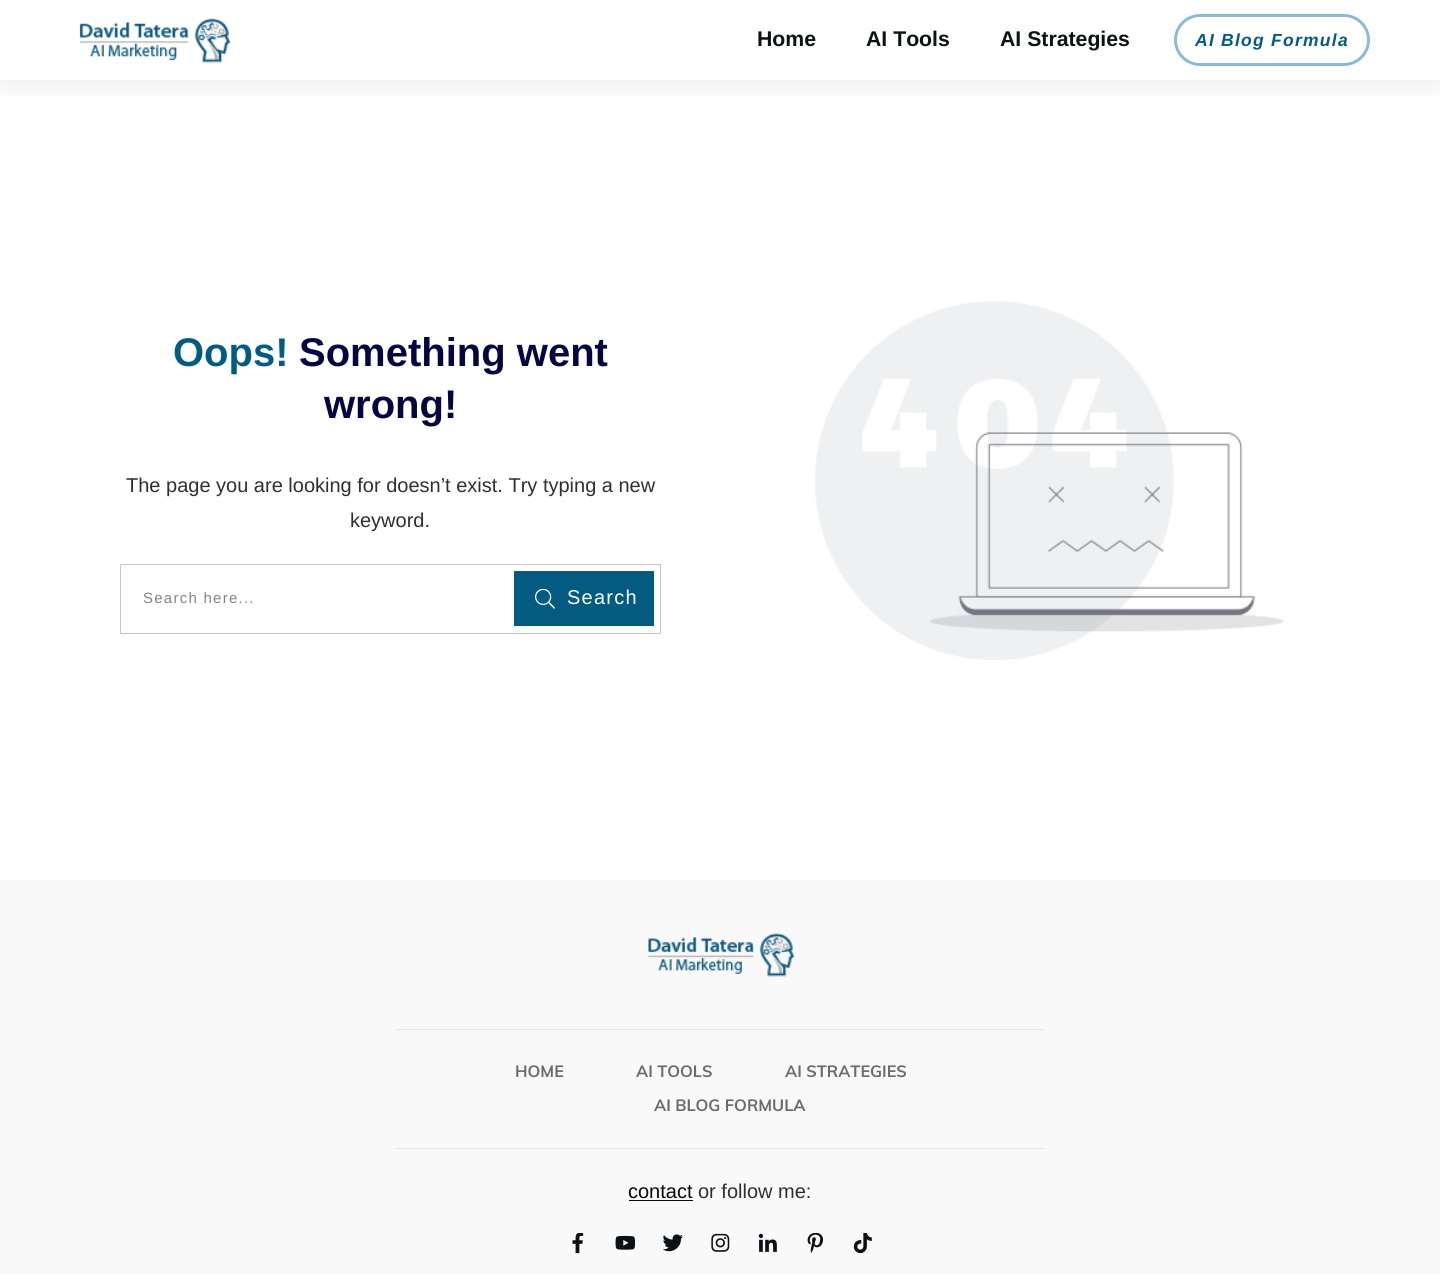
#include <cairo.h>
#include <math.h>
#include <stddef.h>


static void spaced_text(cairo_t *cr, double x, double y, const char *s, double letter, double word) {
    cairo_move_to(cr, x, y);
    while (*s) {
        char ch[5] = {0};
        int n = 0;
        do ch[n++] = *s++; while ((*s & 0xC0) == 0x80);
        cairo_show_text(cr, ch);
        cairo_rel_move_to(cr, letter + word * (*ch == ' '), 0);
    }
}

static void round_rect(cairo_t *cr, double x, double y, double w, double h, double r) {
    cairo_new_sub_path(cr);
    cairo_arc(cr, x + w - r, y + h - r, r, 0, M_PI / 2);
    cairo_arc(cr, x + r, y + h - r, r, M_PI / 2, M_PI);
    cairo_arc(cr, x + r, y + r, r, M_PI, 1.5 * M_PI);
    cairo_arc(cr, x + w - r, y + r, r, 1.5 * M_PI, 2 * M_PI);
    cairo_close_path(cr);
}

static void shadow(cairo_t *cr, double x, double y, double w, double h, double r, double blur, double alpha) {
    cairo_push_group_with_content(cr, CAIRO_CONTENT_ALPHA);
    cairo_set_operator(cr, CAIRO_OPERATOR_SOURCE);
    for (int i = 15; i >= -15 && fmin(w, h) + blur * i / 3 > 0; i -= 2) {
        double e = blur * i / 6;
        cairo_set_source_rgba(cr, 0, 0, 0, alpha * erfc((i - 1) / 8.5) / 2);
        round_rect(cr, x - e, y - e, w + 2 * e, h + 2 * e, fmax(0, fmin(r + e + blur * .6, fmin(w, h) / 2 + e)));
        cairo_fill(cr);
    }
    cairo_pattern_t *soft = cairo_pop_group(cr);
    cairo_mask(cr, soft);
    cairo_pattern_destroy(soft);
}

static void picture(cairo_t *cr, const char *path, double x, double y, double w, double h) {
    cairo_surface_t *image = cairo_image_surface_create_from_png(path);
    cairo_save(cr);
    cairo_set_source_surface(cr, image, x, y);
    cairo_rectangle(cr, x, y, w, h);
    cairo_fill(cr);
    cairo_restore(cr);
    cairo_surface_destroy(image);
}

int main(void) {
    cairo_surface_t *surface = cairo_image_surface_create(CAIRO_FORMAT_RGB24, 1440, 1274);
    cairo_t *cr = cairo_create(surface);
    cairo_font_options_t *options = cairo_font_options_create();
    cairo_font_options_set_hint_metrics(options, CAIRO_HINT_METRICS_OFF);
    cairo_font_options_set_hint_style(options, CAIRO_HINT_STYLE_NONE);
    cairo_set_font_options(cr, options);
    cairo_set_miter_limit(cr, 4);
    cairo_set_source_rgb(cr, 1, 1, 1);
    cairo_paint(cr);
    cairo_save(cr);
    cairo_rectangle(cr, 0, 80, 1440, 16);
    cairo_clip(cr);
    cairo_set_source_rgb(cr, 0, 0, 0);
    shadow(cr, 0, 3, 1440, 80, 0, 19, 0.08);
    cairo_restore(cr);
    picture(cr, "img1.png", 79, 18, 152, 45);
    cairo_select_font_face(cr, "Liberation Sans", CAIRO_FONT_SLANT_NORMAL, CAIRO_FONT_WEIGHT_BOLD);
    cairo_set_font_size(cr, 21.25);
    cairo_set_source_rgb(cr, 0.047, 0.067, 0.082);
    cairo_move_to(cr, 757, 46);
    cairo_show_text(cr, "Home");
    cairo_move_to(cr, 866, 46);
    cairo_show_text(cr, "AI Tools");
    cairo_move_to(cr, 1000, 46);
    cairo_show_text(cr, "AI Strategies");
    round_rect(cr, 1175.5, 15.5, 193, 49, 24.5);
    cairo_set_source_rgb(cr, 0.537, 0.737, 0.824);
    cairo_set_line_width(cr, 3);
    cairo_stroke(cr);
    cairo_select_font_face(cr, "Liberation Sans", CAIRO_FONT_SLANT_ITALIC, CAIRO_FONT_WEIGHT_BOLD);
    cairo_set_font_size(cr, 17.5);
    cairo_set_source_rgb(cr, 0.012, 0.357, 0.506);
    spaced_text(cr, 1195, 46, "AI Blog Formula", 1.25, 0);
    cairo_select_font_face(cr, "Liberation Sans", CAIRO_FONT_SLANT_NORMAL, CAIRO_FONT_WEIGHT_BOLD);
    cairo_set_font_size(cr, 40);
    cairo_move_to(cr, 173, 366);
    cairo_show_text(cr, "Oops!");
    cairo_set_source_rgb(cr, 0.02, 0.02, 0.255);
    cairo_move_to(cr, 299, 366);
    cairo_show_text(cr, "Something went");
    cairo_move_to(cr, 324, 418);
    cairo_show_text(cr, "wrong!");
    cairo_select_font_face(cr, "Liberation Sans", CAIRO_FONT_SLANT_NORMAL, CAIRO_FONT_WEIGHT_NORMAL);
    cairo_set_font_size(cr, 20);
    cairo_set_source_rgb(cr, 0.184, 0.184, 0.184);
    cairo_move_to(cr, 126, 492);
    cairo_show_text(cr, "The page you are looking for doesn’t exist. Try typing a new");
    cairo_move_to(cr, 350, 527);
    cairo_show_text(cr, "keyword.");
    cairo_rectangle(cr, 120.5, 564.5, 540, 69);
    cairo_set_source_rgb(cr, 0.78, 0.78, 0.78);
    cairo_set_line_width(cr, 1);
    cairo_stroke(cr);
    cairo_set_font_size(cr, 15);
    cairo_set_source_rgb(cr, 0.522, 0.522, 0.522);
    spaced_text(cr, 143, 603, "Search here...", 1.25, 0);
    cairo_set_source_rgb(cr, 0.012, 0.357, 0.506);
    cairo_rectangle(cr, 514, 571, 140, 55);
    cairo_fill(cr);
    picture(cr, "img2.png", 535, 589, 20, 20);
    cairo_set_font_size(cr, 20);
    cairo_set_source_rgb(cr, 1, 1, 1);
    spaced_text(cr, 567, 604, "Search", 1.25, 0);
    picture(cr, "img3.png", 815, 301, 469, 359);
    cairo_set_source_rgb(cr, 0.973, 0.973, 0.973);
    cairo_rectangle(cr, 0, 880, 1440, 394);
    cairo_fill(cr);
    picture(cr, "img4.png", 648, 933, 147, 44);
    cairo_set_source_rgb(cr, 0.902, 0.902, 0.902);
    cairo_rectangle(cr, 395, 1029, 650, 1);
    cairo_fill(cr);
    cairo_rectangle(cr, 395, 1148, 650, 1);
    cairo_fill(cr);
    cairo_select_font_face(cr, "Muli", CAIRO_FONT_SLANT_NORMAL, CAIRO_FONT_WEIGHT_BOLD);
    cairo_set_font_size(cr, 16.25);
    cairo_set_source_rgb(cr, 0.416, 0.42, 0.424);
    cairo_move_to(cr, 515, 1077);
    cairo_show_text(cr, "HOME");
    cairo_move_to(cr, 636, 1077);
    cairo_show_text(cr, "AI TOOLS");
    cairo_move_to(cr, 785, 1077);
    cairo_show_text(cr, "AI STRATEGIES");
    cairo_move_to(cr, 654, 1111);
    cairo_show_text(cr, "AI BLOG FORMULA");
    cairo_select_font_face(cr, "Liberation Sans", CAIRO_FONT_SLANT_NORMAL, CAIRO_FONT_WEIGHT_NORMAL);
    cairo_set_font_size(cr, 20);
    cairo_set_source_rgb(cr, 0.039, 0.039, 0.039);
    cairo_move_to(cr, 628, 1198);
    cairo_show_text(cr, "contact");
    cairo_rectangle(cr, 629, 1200, 64, 1);
    cairo_fill(cr);
    cairo_set_source_rgb(cr, 0.184, 0.184, 0.184);
    cairo_move_to(cr, 698, 1198);
    cairo_show_text(cr, "or follow me:");
    picture(cr, "img5.png", 572, 1233, 12, 21);
    picture(cr, "img6.png", 615, 1235, 20, 15);
    picture(cr, "img7.png", 663, 1234, 20, 18);
    picture(cr, "img8.png", 711, 1233, 19, 19);
    picture(cr, "img9.png", 758, 1233, 19, 19);
    picture(cr, "img10.png", 807, 1233, 17, 20);
    picture(cr, "img11.png", 853, 1233, 19, 21);
    cairo_surface_write_to_png(surface, "page.png");
    cairo_font_options_destroy(options);
    cairo_destroy(cr);
    cairo_surface_destroy(surface);
    return 0;
}
